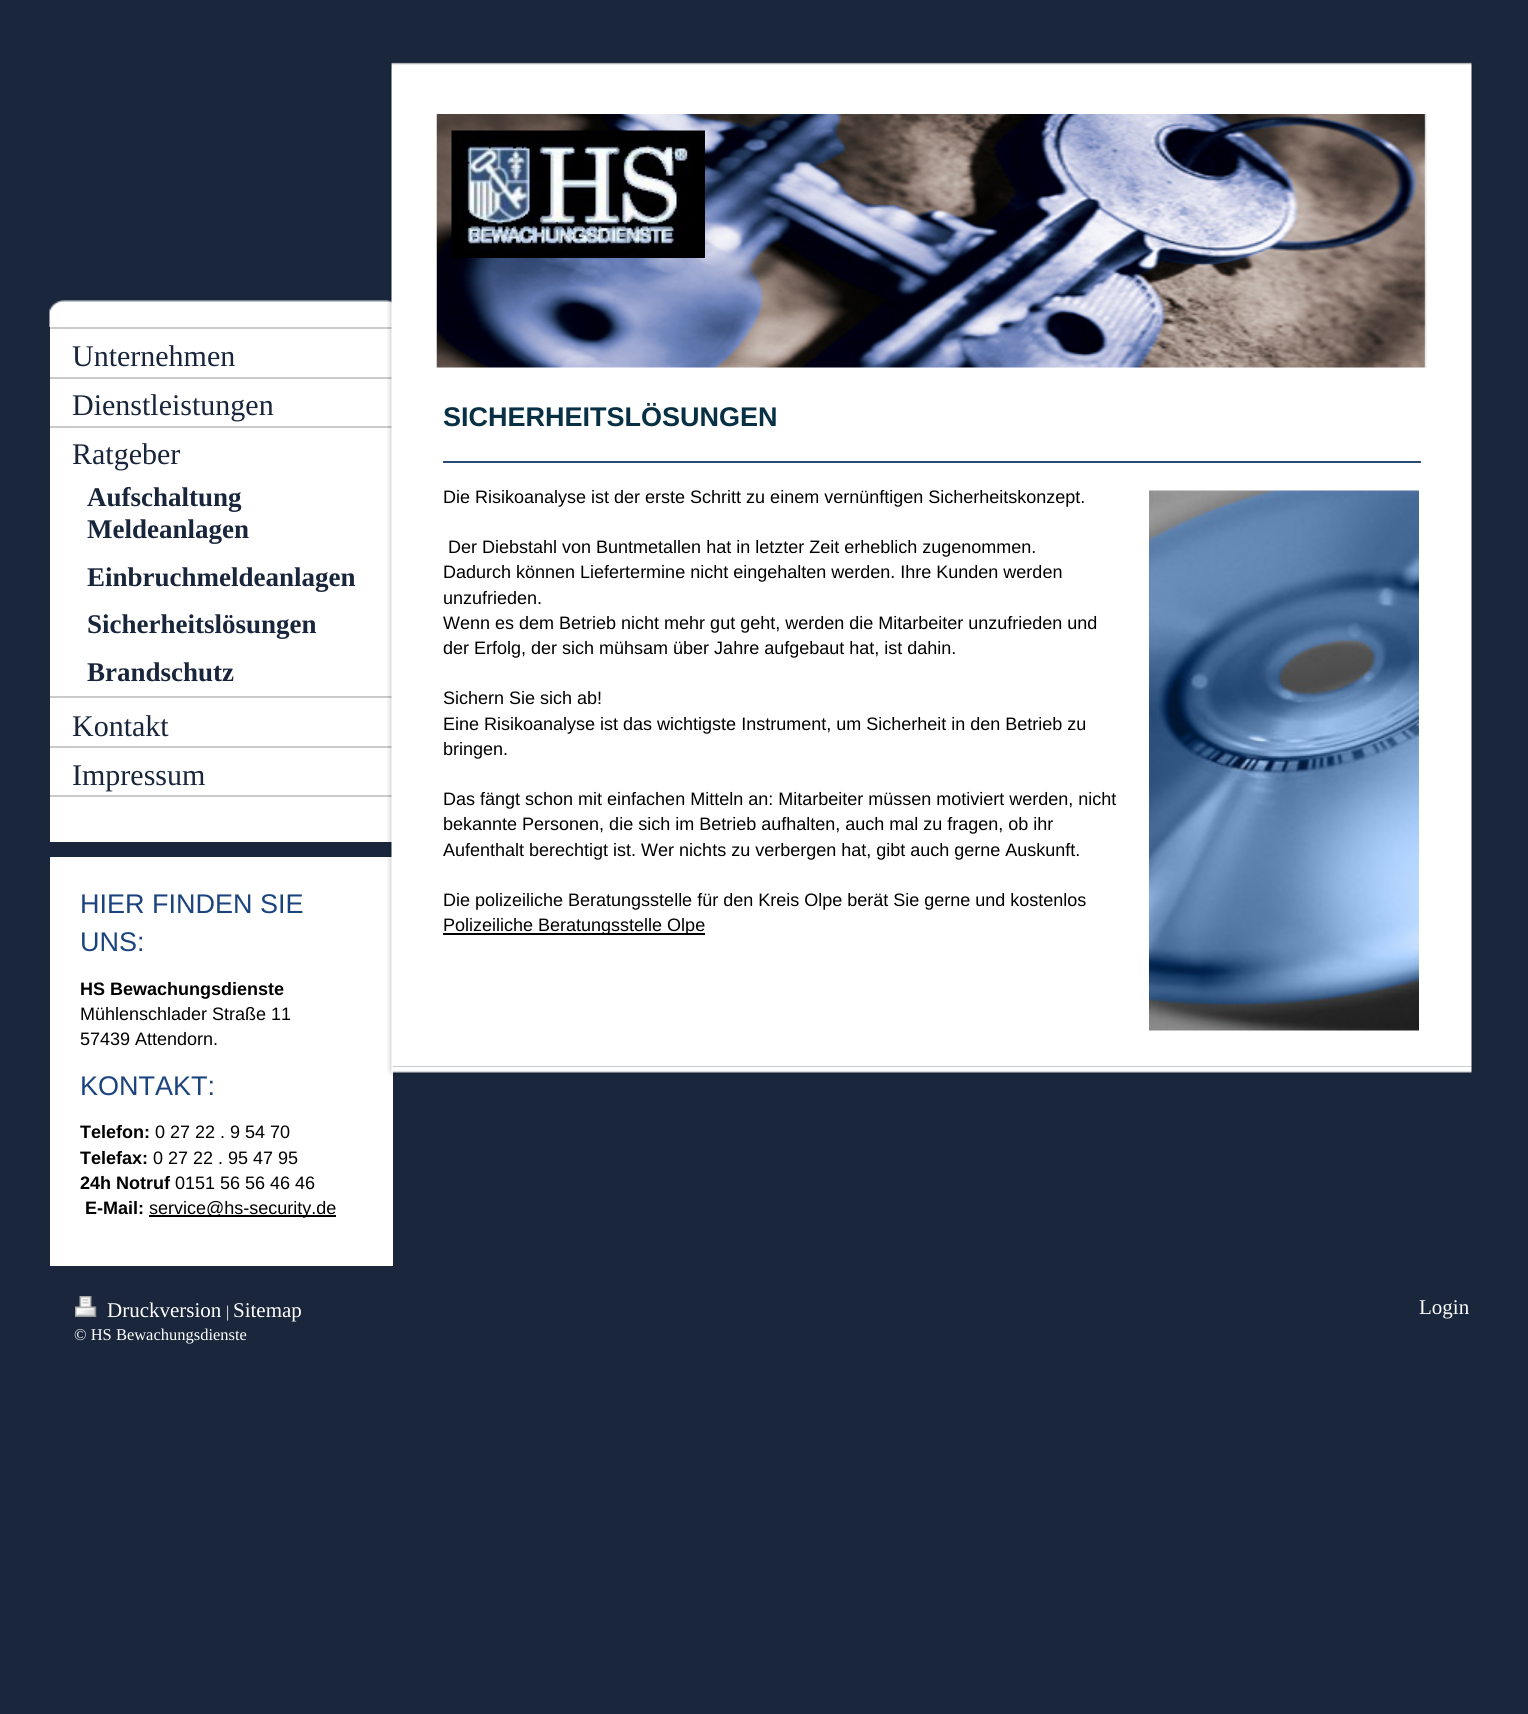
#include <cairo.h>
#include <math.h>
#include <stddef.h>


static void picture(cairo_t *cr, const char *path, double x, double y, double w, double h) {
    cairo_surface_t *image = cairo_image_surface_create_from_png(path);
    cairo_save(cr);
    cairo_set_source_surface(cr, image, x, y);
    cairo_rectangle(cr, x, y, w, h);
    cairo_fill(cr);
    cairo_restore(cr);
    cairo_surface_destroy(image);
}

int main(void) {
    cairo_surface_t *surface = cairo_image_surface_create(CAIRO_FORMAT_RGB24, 1528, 1714);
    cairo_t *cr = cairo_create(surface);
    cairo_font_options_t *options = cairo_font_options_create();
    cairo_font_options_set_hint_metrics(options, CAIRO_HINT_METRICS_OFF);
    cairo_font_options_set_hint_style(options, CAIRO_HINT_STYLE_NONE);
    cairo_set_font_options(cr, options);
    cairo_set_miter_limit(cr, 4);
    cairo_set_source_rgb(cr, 0.098, 0.149, 0.235);
    cairo_paint(cr);
    picture(cr, "img1.png", 49, 300, 343, 27);
    cairo_set_source_rgb(cr, 1, 1, 1);
    cairo_rectangle(cr, 50, 329, 342, 513);
    cairo_fill(cr);
    cairo_set_source_rgb(cr, 0.792, 0.792, 0.788);
    cairo_rectangle(cr, 50, 795, 343, 2);
    cairo_fill(cr);
    cairo_set_source_rgb(cr, 0.792, 0.792, 0.792);
    cairo_rectangle(cr, 50, 327, 343, 2);
    cairo_fill(cr);
    cairo_select_font_face(cr, "Liberation Serif", CAIRO_FONT_SLANT_NORMAL, CAIRO_FONT_WEIGHT_NORMAL);
    cairo_set_font_size(cr, 30);
    cairo_set_source_rgb(cr, 0.094, 0.145, 0.231);
    cairo_move_to(cr, 72, 366);
    cairo_show_text(cr, "Unternehmen");
    cairo_set_source_rgb(cr, 0.792, 0.792, 0.792);
    cairo_rectangle(cr, 50, 377, 343, 2);
    cairo_fill(cr);
    cairo_set_source_rgb(cr, 0.094, 0.145, 0.231);
    cairo_move_to(cr, 72, 415);
    cairo_show_text(cr, "Dienstleistungen");
    cairo_set_source_rgb(cr, 0.792, 0.792, 0.792);
    cairo_rectangle(cr, 50, 426, 343, 2);
    cairo_fill(cr);
    cairo_set_source_rgb(cr, 0.094, 0.145, 0.231);
    cairo_move_to(cr, 72, 464);
    cairo_show_text(cr, "Ratgeber");
    cairo_select_font_face(cr, "Liberation Serif", CAIRO_FONT_SLANT_NORMAL, CAIRO_FONT_WEIGHT_BOLD);
    cairo_set_font_size(cr, 27);
    cairo_move_to(cr, 87, 506);
    cairo_show_text(cr, "Aufschaltung");
    cairo_move_to(cr, 87, 538);
    cairo_show_text(cr, "Meldeanlagen");
    cairo_move_to(cr, 87, 586);
    cairo_show_text(cr, "Einbruchmeldeanlagen");
    cairo_move_to(cr, 87, 633);
    cairo_show_text(cr, "Sicherheitslösungen");
    cairo_move_to(cr, 87, 681);
    cairo_show_text(cr, "Brandschutz");
    cairo_set_source_rgb(cr, 0.792, 0.792, 0.792);
    cairo_rectangle(cr, 50, 696, 343, 2);
    cairo_fill(cr);
    cairo_select_font_face(cr, "Liberation Serif", CAIRO_FONT_SLANT_NORMAL, CAIRO_FONT_WEIGHT_NORMAL);
    cairo_set_font_size(cr, 30);
    cairo_set_source_rgb(cr, 0.094, 0.145, 0.231);
    cairo_move_to(cr, 72, 736);
    cairo_show_text(cr, "Kontakt");
    cairo_set_source_rgb(cr, 0.792, 0.792, 0.792);
    cairo_rectangle(cr, 50, 746, 343, 2);
    cairo_fill(cr);
    cairo_set_source_rgb(cr, 0.094, 0.145, 0.231);
    cairo_move_to(cr, 72, 785);
    cairo_show_text(cr, "Impressum");
    cairo_set_source_rgb(cr, 1, 1, 1);
    cairo_rectangle(cr, 50, 857, 343, 409);
    cairo_fill(cr);
    cairo_select_font_face(cr, "Liberation Sans", CAIRO_FONT_SLANT_NORMAL, CAIRO_FONT_WEIGHT_NORMAL);
    cairo_set_font_size(cr, 27);
    cairo_set_source_rgb(cr, 0.106, 0.267, 0.498);
    cairo_move_to(cr, 80, 913);
    cairo_show_text(cr, "HIER FINDEN SIE");
    cairo_move_to(cr, 80, 951);
    cairo_show_text(cr, "UNS:");
    cairo_select_font_face(cr, "Liberation Sans", CAIRO_FONT_SLANT_NORMAL, CAIRO_FONT_WEIGHT_BOLD);
    cairo_set_font_size(cr, 18);
    cairo_set_source_rgb(cr, 0, 0, 0);
    cairo_move_to(cr, 80, 995);
    cairo_show_text(cr, "HS Bewachungsdienste");
    cairo_select_font_face(cr, "Liberation Sans", CAIRO_FONT_SLANT_NORMAL, CAIRO_FONT_WEIGHT_NORMAL);
    cairo_move_to(cr, 80, 1020);
    cairo_show_text(cr, "Mühlenschlader Straße 11");
    cairo_move_to(cr, 80, 1045);
    cairo_show_text(cr, "57439 Attendorn.");
    cairo_set_font_size(cr, 27);
    cairo_set_source_rgb(cr, 0.106, 0.267, 0.498);
    cairo_move_to(cr, 80, 1095);
    cairo_show_text(cr, "KONTAKT:");
    cairo_select_font_face(cr, "Liberation Sans", CAIRO_FONT_SLANT_NORMAL, CAIRO_FONT_WEIGHT_BOLD);
    cairo_set_font_size(cr, 18);
    cairo_set_source_rgb(cr, 0, 0, 0);
    cairo_move_to(cr, 80, 1138);
    cairo_show_text(cr, "Telefon:");
    cairo_select_font_face(cr, "Liberation Sans", CAIRO_FONT_SLANT_NORMAL, CAIRO_FONT_WEIGHT_NORMAL);
    cairo_move_to(cr, 155, 1138);
    cairo_show_text(cr, "0 27 22 . 9 54 70");
    cairo_select_font_face(cr, "Liberation Sans", CAIRO_FONT_SLANT_NORMAL, CAIRO_FONT_WEIGHT_BOLD);
    cairo_move_to(cr, 80, 1164);
    cairo_show_text(cr, "Telefax:");
    cairo_select_font_face(cr, "Liberation Sans", CAIRO_FONT_SLANT_NORMAL, CAIRO_FONT_WEIGHT_NORMAL);
    cairo_move_to(cr, 153, 1164);
    cairo_show_text(cr, "0 27 22 . 95 47 95");
    cairo_select_font_face(cr, "Liberation Sans", CAIRO_FONT_SLANT_NORMAL, CAIRO_FONT_WEIGHT_BOLD);
    cairo_move_to(cr, 80, 1189);
    cairo_show_text(cr, "24h Notruf");
    cairo_select_font_face(cr, "Liberation Sans", CAIRO_FONT_SLANT_NORMAL, CAIRO_FONT_WEIGHT_NORMAL);
    cairo_move_to(cr, 175, 1189);
    cairo_show_text(cr, "0151 56 56 46 46");
    cairo_select_font_face(cr, "Liberation Sans", CAIRO_FONT_SLANT_NORMAL, CAIRO_FONT_WEIGHT_BOLD);
    cairo_move_to(cr, 85, 1214);
    cairo_show_text(cr, "E-Mail:");
    cairo_rectangle(cr, 149, 1215, 187, 2);
    cairo_fill(cr);
    cairo_select_font_face(cr, "Liberation Sans", CAIRO_FONT_SLANT_NORMAL, CAIRO_FONT_WEIGHT_NORMAL);
    cairo_move_to(cr, 149, 1214);
    cairo_show_text(cr, "service@hs-security.de");
    picture(cr, "img2.png", 389, 61, 1085, 8);
    picture(cr, "img3.png", 387, 69, 1087, 998);
    cairo_set_source_rgb(cr, 0.933, 0.933, 0.933);
    cairo_rectangle(cr, 1426, 114, 1, 255);
    cairo_fill(cr);
    picture(cr, "img4.png", 436, 114, 991, 255);
    picture(cr, "img5.png", 451, 130, 254, 128);
    cairo_select_font_face(cr, "Liberation Sans", CAIRO_FONT_SLANT_NORMAL, CAIRO_FONT_WEIGHT_BOLD);
    cairo_set_font_size(cr, 27);
    cairo_set_source_rgb(cr, 0.031, 0.188, 0.267);
    cairo_move_to(cr, 443, 426);
    cairo_show_text(cr, "SICHERHEITSLÖSUNGEN");
    cairo_set_source_rgb(cr, 0.157, 0.29, 0.459);
    cairo_rectangle(cr, 443, 461, 978, 2);
    cairo_fill(cr);
    cairo_select_font_face(cr, "Liberation Sans", CAIRO_FONT_SLANT_NORMAL, CAIRO_FONT_WEIGHT_NORMAL);
    cairo_set_font_size(cr, 18);
    cairo_set_source_rgb(cr, 0, 0, 0);
    cairo_move_to(cr, 443, 503);
    cairo_show_text(cr, "Die Risikoanalyse ist der erste Schritt zu einem vernünftigen Sicherheitskonzept.");
    cairo_move_to(cr, 448, 553);
    cairo_show_text(cr, "Der Diebstahl von Buntmetallen hat in letzter Zeit erheblich zugenommen.");
    cairo_move_to(cr, 443, 578);
    cairo_show_text(cr, "Dadurch können Liefertermine nicht eingehalten werden. Ihre Kunden werden");
    cairo_move_to(cr, 443, 604);
    cairo_show_text(cr, "unzufrieden.");
    cairo_move_to(cr, 443, 629);
    cairo_show_text(cr, "Wenn es dem Betrieb nicht mehr gut geht, werden die Mitarbeiter unzufrieden und");
    cairo_move_to(cr, 443, 654);
    cairo_show_text(cr, "der Erfolg, der sich mühsam über Jahre aufgebaut hat, ist dahin.");
    cairo_move_to(cr, 443, 704);
    cairo_show_text(cr, "Sichern Sie sich ab!");
    cairo_move_to(cr, 443, 730);
    cairo_show_text(cr, "Eine Risikoanalyse ist das wichtigste Instrument, um Sicherheit in den Betrieb zu");
    cairo_move_to(cr, 443, 755);
    cairo_show_text(cr, "bringen.");
    cairo_move_to(cr, 443, 805);
    cairo_show_text(cr, "Das fängt schon mit einfachen Mitteln an: Mitarbeiter müssen motiviert werden, nicht");
    cairo_move_to(cr, 443, 830);
    cairo_show_text(cr, "bekannte Personen, die sich im Betrieb aufhalten, auch mal zu fragen, ob ihr");
    cairo_move_to(cr, 443, 856);
    cairo_show_text(cr, "Aufenthalt berechtigt ist. Wer nichts zu verbergen hat, gibt auch gerne Auskunft.");
    cairo_move_to(cr, 443, 906);
    cairo_show_text(cr, "Die polizeiliche Beratungsstelle für den Kreis Olpe berät Sie gerne und kostenlos");
    cairo_rectangle(cr, 443, 933, 262, 2);
    cairo_fill(cr);
    cairo_move_to(cr, 443, 931);
    cairo_show_text(cr, "Polizeiliche Beratungsstelle Olpe");
    picture(cr, "img6.png", 1149, 490, 270, 541);
    picture(cr, "img7.png", 387, 1066, 1087, 10);
    picture(cr, "img8.png", 75, 1296, 22, 21);
    cairo_select_font_face(cr, "Liberation Serif", CAIRO_FONT_SLANT_NORMAL, CAIRO_FONT_WEIGHT_NORMAL);
    cairo_set_font_size(cr, 21);
    cairo_set_source_rgb(cr, 1, 1, 1);
    cairo_move_to(cr, 107, 1317);
    cairo_show_text(cr, "Druckversion");
    cairo_set_font_size(cr, 16.5);
    cairo_move_to(cr, 226, 1317);
    cairo_show_text(cr, "|");
    cairo_set_font_size(cr, 21);
    cairo_move_to(cr, 233, 1317);
    cairo_show_text(cr, "Sitemap");
    cairo_set_font_size(cr, 16.5);
    cairo_move_to(cr, 74, 1340);
    cairo_show_text(cr, "© HS Bewachungsdienste");
    cairo_set_font_size(cr, 21);
    cairo_move_to(cr, 1419, 1314);
    cairo_show_text(cr, "Login");
    cairo_surface_write_to_png(surface, "page.png");
    cairo_font_options_destroy(options);
    cairo_destroy(cr);
    cairo_surface_destroy(surface);
    return 0;
}
